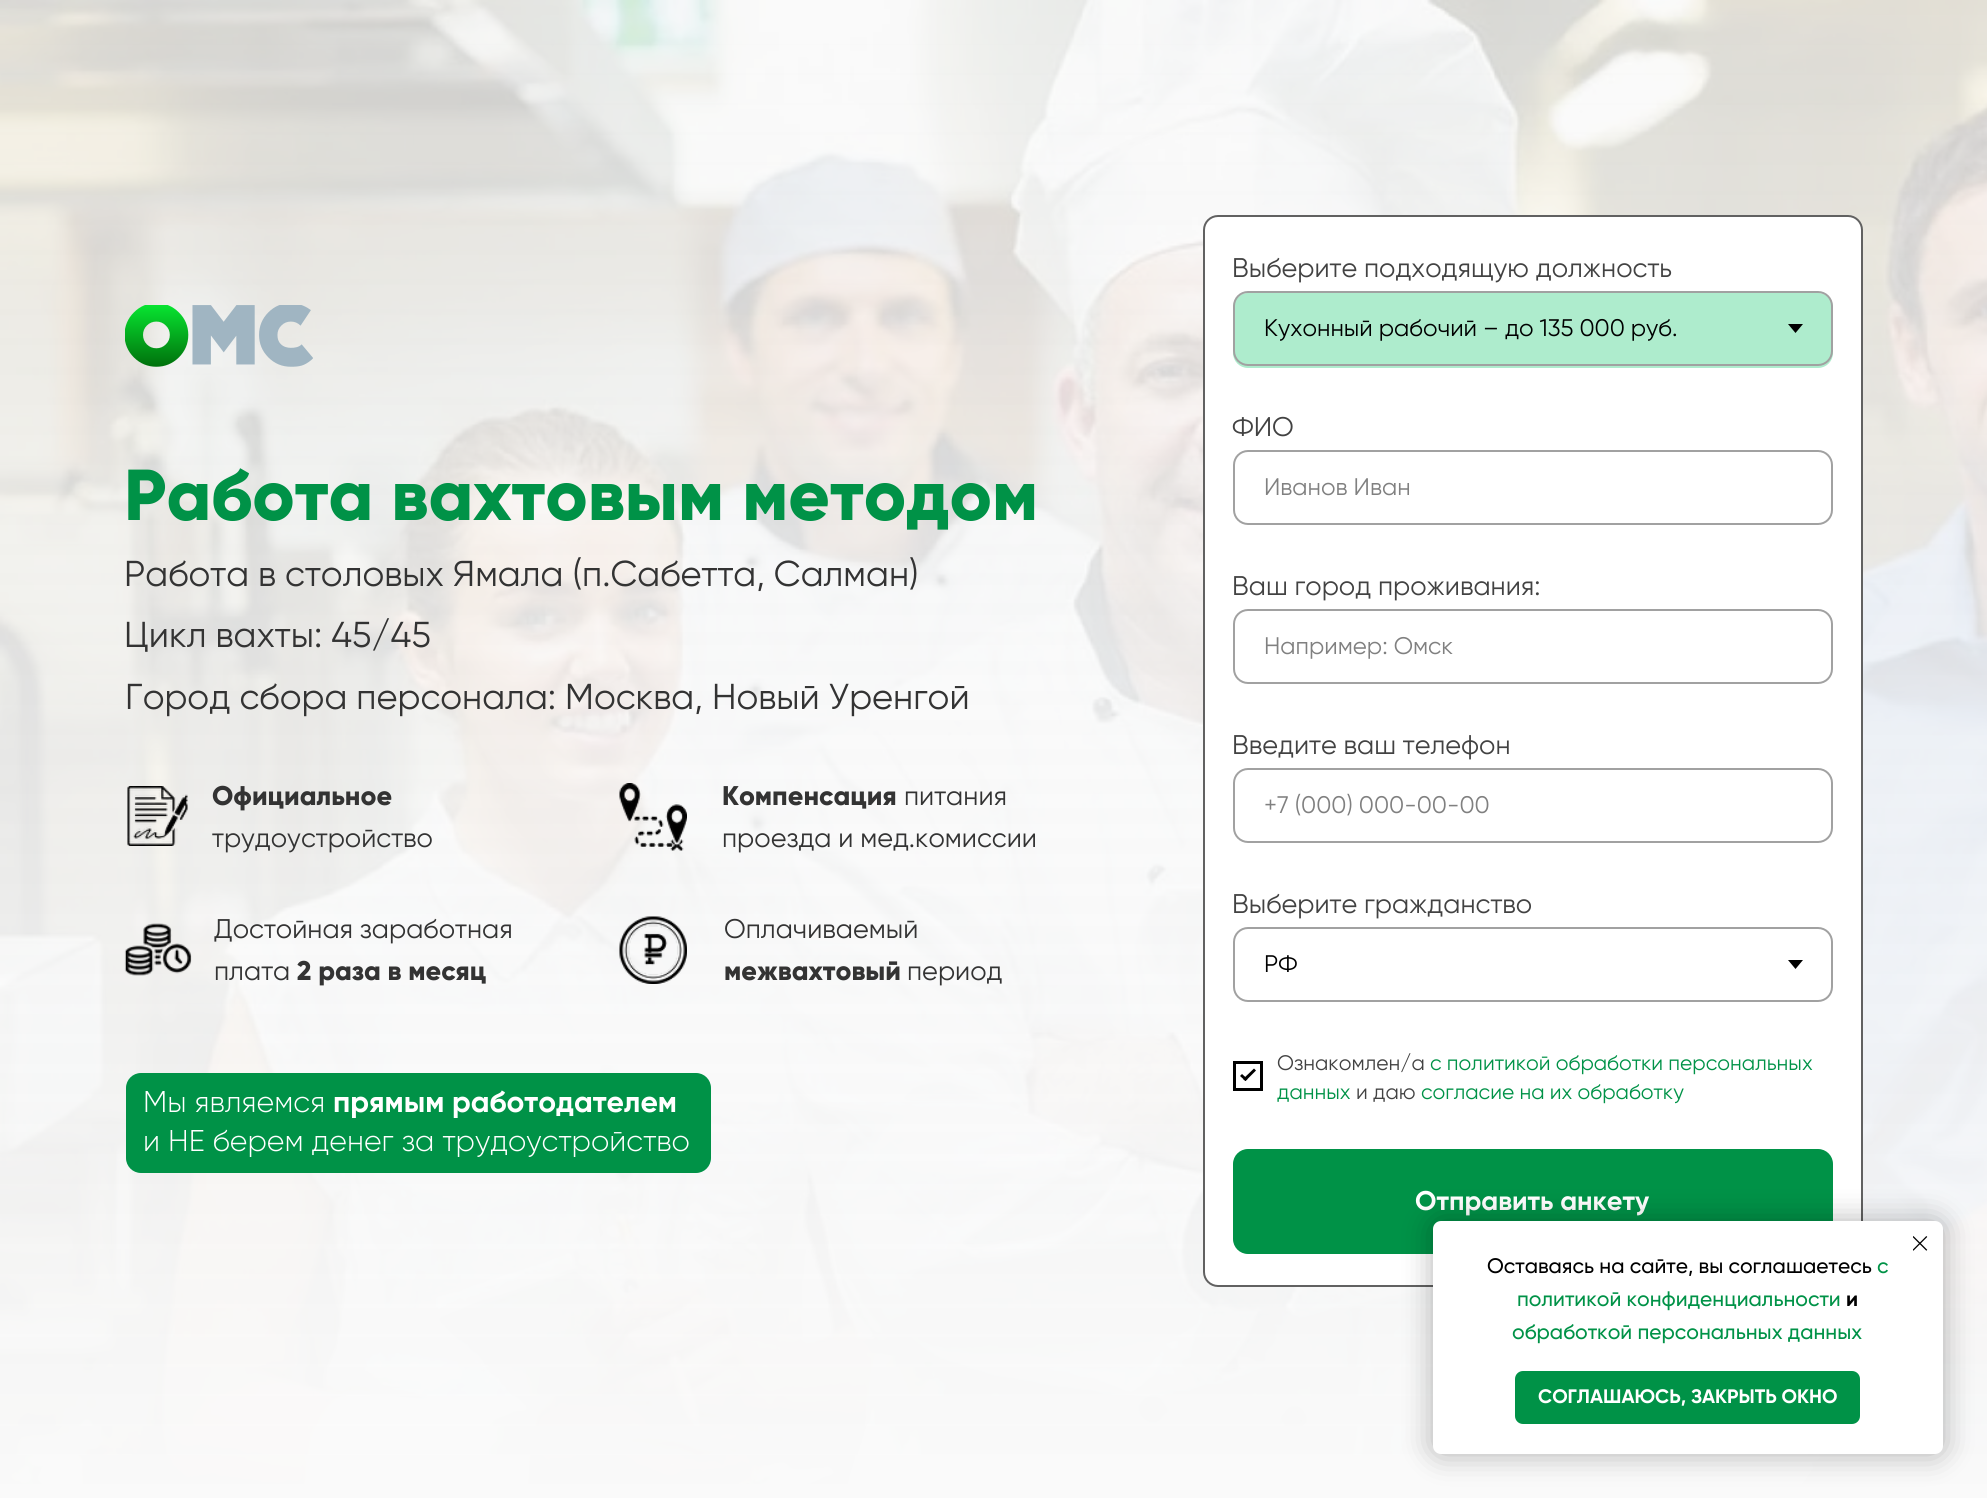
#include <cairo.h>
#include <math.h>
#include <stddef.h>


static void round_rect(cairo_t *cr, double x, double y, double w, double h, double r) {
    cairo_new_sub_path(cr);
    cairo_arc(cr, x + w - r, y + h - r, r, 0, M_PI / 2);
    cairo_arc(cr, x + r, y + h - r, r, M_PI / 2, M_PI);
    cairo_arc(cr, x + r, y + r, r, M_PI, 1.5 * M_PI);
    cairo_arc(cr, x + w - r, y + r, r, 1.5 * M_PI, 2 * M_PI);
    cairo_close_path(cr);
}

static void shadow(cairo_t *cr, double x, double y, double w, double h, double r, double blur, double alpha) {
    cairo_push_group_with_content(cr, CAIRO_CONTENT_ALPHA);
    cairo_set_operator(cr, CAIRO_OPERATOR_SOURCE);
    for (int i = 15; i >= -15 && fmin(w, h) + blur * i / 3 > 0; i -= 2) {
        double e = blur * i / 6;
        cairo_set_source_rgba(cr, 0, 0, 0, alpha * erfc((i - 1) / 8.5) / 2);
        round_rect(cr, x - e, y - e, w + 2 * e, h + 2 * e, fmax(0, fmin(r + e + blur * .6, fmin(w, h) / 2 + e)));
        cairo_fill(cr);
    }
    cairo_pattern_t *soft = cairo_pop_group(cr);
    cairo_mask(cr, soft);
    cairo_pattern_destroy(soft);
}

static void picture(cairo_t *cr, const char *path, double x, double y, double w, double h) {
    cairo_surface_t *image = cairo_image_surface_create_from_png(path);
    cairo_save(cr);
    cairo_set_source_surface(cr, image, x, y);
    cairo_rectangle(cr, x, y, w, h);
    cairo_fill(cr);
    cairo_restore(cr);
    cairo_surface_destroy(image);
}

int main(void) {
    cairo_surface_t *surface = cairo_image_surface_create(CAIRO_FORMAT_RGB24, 1987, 1498);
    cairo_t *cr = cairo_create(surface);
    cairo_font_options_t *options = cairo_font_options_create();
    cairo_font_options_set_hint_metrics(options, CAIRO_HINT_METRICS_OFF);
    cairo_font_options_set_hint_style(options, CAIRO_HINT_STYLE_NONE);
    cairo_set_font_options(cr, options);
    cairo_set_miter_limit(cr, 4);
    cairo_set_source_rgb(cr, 1, 1, 1);
    cairo_paint(cr);
    picture(cr, "img1.png", 0, 0, 1987, 1498);
    cairo_set_source_rgb(cr, 1, 1, 1);
    round_rect(cr, 1204, 216, 658, 1070, 14);
    cairo_fill_preserve(cr);
    cairo_set_source_rgb(cr, 0.38, 0.38, 0.38);
    cairo_stroke(cr);
    cairo_select_font_face(cr, "Gilroy", CAIRO_FONT_SLANT_NORMAL, CAIRO_FONT_WEIGHT_NORMAL);
    cairo_set_font_size(cr, 27);
    cairo_set_source_rgb(cr, 0.259, 0.259, 0.259);
    cairo_move_to(cr, 1232, 277);
    cairo_show_text(cr, "Выберите подходящую должность");
    cairo_set_source_rgb(cr, 0.682, 0.922, 0.804);
    round_rect(cr, 1233, 293, 600, 75, 15);
    cairo_fill(cr);
    round_rect(cr, 1234, 292, 598, 73, 14);
    cairo_set_source_rgb(cr, 0.631, 0.631, 0.631);
    cairo_stroke(cr);
    cairo_set_font_size(cr, 24);
    cairo_set_source_rgb(cr, 0, 0, 0);
    cairo_move_to(cr, 1264, 336);
    cairo_show_text(cr, "Кухонный рабочий – до 135 000 руб.");
    cairo_new_path(cr);
    cairo_move_to(cr, 1788, 324);
    cairo_line_to(cr, 1803, 324);
    cairo_line_to(cr, 1795.5, 333);
    cairo_close_path(cr);
    cairo_fill(cr);
    cairo_set_font_size(cr, 27);
    cairo_set_source_rgb(cr, 0.259, 0.259, 0.259);
    cairo_move_to(cr, 1232, 436);
    cairo_show_text(cr, "ФИО");
    round_rect(cr, 1234, 451, 598, 73, 14);
    cairo_set_source_rgb(cr, 0.631, 0.631, 0.631);
    cairo_stroke(cr);
    cairo_set_font_size(cr, 24);
    cairo_set_source_rgb(cr, 0.502, 0.502, 0.502);
    cairo_move_to(cr, 1264, 495);
    cairo_show_text(cr, "Иванов Иван");
    cairo_set_font_size(cr, 27);
    cairo_set_source_rgb(cr, 0.259, 0.259, 0.259);
    cairo_move_to(cr, 1232, 595);
    cairo_show_text(cr, "Ваш город проживания:");
    round_rect(cr, 1234, 610, 598, 73, 14);
    cairo_set_source_rgb(cr, 0.631, 0.631, 0.631);
    cairo_stroke(cr);
    cairo_set_font_size(cr, 24);
    cairo_set_source_rgb(cr, 0.502, 0.502, 0.502);
    cairo_move_to(cr, 1264, 654);
    cairo_show_text(cr, "Например: Омск");
    cairo_set_font_size(cr, 27);
    cairo_set_source_rgb(cr, 0.259, 0.259, 0.259);
    cairo_move_to(cr, 1232, 754);
    cairo_show_text(cr, "Введите ваш телефон");
    round_rect(cr, 1234, 769, 598, 73, 14);
    cairo_set_source_rgb(cr, 0.631, 0.631, 0.631);
    cairo_stroke(cr);
    cairo_set_font_size(cr, 24);
    cairo_set_source_rgb(cr, 0.502, 0.502, 0.502);
    cairo_move_to(cr, 1264, 813);
    cairo_show_text(cr, "+7 (000) 000-00-00");
    cairo_set_font_size(cr, 27);
    cairo_set_source_rgb(cr, 0.259, 0.259, 0.259);
    cairo_move_to(cr, 1232, 913);
    cairo_show_text(cr, "Выберите гражданство");
    round_rect(cr, 1234, 928, 598, 73, 14);
    cairo_set_source_rgb(cr, 0.631, 0.631, 0.631);
    cairo_stroke(cr);
    cairo_set_font_size(cr, 24);
    cairo_set_source_rgb(cr, 0, 0, 0);
    cairo_move_to(cr, 1264, 972);
    cairo_show_text(cr, "РФ");
    cairo_new_path(cr);
    cairo_move_to(cr, 1788, 960);
    cairo_line_to(cr, 1803, 960);
    cairo_line_to(cr, 1795.5, 969);
    cairo_close_path(cr);
    cairo_fill(cr);
    cairo_rectangle(cr, 1234.5, 1062.5, 27, 27);
    cairo_set_line_width(cr, 3);
    cairo_stroke(cr);
    cairo_new_path(cr);
    cairo_move_to(cr, 1254, 1068.5);
    cairo_line_to(cr, 1256, 1070.5);
    cairo_line_to(cr, 1245.5, 1081);
    cairo_line_to(cr, 1243, 1079);
    cairo_close_path(cr);
    cairo_fill(cr);
    cairo_new_path(cr);
    cairo_move_to(cr, 1242, 1074);
    cairo_line_to(cr, 1247.5, 1079);
    cairo_line_to(cr, 1245.5, 1081);
    cairo_line_to(cr, 1240, 1076);
    cairo_close_path(cr);
    cairo_fill(cr);
    cairo_set_font_size(cr, 21);
    cairo_set_source_rgb(cr, 0.259, 0.259, 0.259);
    cairo_move_to(cr, 1277, 1070);
    cairo_show_text(cr, "Ознакомлен/а");
    cairo_set_source_rgb(cr, 0, 0.573, 0.278);
    cairo_move_to(cr, 1430, 1070);
    cairo_show_text(cr, "с политикой обработки персональных");
    cairo_move_to(cr, 1277, 1099);
    cairo_show_text(cr, "данных");
    cairo_set_source_rgb(cr, 0.259, 0.259, 0.259);
    cairo_move_to(cr, 1356, 1099);
    cairo_show_text(cr, "и даю");
    cairo_set_source_rgb(cr, 0, 0.573, 0.278);
    cairo_move_to(cr, 1421, 1099);
    cairo_show_text(cr, "согласие на их обработку");
    round_rect(cr, 1233, 1149, 600, 105, 15);
    cairo_fill(cr);
    cairo_select_font_face(cr, "Gilroy", CAIRO_FONT_SLANT_NORMAL, CAIRO_FONT_WEIGHT_BOLD);
    cairo_set_font_size(cr, 27);
    cairo_set_source_rgb(cr, 1, 1, 1);
    cairo_move_to(cr, 1415, 1210);
    cairo_show_text(cr, "Отправить анкету");
    picture(cr, "img2.png", 125, 305, 188, 62);
    cairo_select_font_face(cr, "Gilroy ExtraBold", CAIRO_FONT_SLANT_NORMAL, CAIRO_FONT_WEIGHT_NORMAL);
    cairo_set_font_size(cr, 72);
    cairo_set_source_rgb(cr, 0, 0.573, 0.278);
    cairo_move_to(cr, 124, 520);
    cairo_show_text(cr, "Работа вахтовым методом");
    cairo_select_font_face(cr, "Gilroy", CAIRO_FONT_SLANT_NORMAL, CAIRO_FONT_WEIGHT_NORMAL);
    cairo_set_font_size(cr, 36);
    cairo_set_source_rgb(cr, 0.2, 0.2, 0.2);
    cairo_move_to(cr, 124, 586);
    cairo_show_text(cr, "Работа в столовых Ямала (п.Сабетта, Салман)");
    cairo_move_to(cr, 124, 647);
    cairo_show_text(cr, "Цикл вахты: 45/45");
    cairo_move_to(cr, 125, 709);
    cairo_show_text(cr, "Город сбора персонала: Москва, Новый Уренгой");
    picture(cr, "img3.png", 127, 786, 61, 60);
    cairo_select_font_face(cr, "Gilroy ExtraBold", CAIRO_FONT_SLANT_NORMAL, CAIRO_FONT_WEIGHT_NORMAL);
    cairo_set_font_size(cr, 27);
    cairo_move_to(cr, 212, 805);
    cairo_show_text(cr, "Официальное");
    cairo_select_font_face(cr, "Gilroy", CAIRO_FONT_SLANT_NORMAL, CAIRO_FONT_WEIGHT_NORMAL);
    cairo_move_to(cr, 212, 847);
    cairo_show_text(cr, "трудоустройство");
    picture(cr, "img4.png", 619, 783, 68, 68);
    cairo_select_font_face(cr, "Gilroy ExtraBold", CAIRO_FONT_SLANT_NORMAL, CAIRO_FONT_WEIGHT_NORMAL);
    cairo_move_to(cr, 722, 805);
    cairo_show_text(cr, "Компенсация");
    cairo_select_font_face(cr, "Gilroy", CAIRO_FONT_SLANT_NORMAL, CAIRO_FONT_WEIGHT_NORMAL);
    cairo_move_to(cr, 904, 805);
    cairo_show_text(cr, "питания");
    cairo_move_to(cr, 722, 847);
    cairo_show_text(cr, "проезда и мед.комиссии");
    picture(cr, "img5.png", 124, 923, 68, 53);
    cairo_move_to(cr, 214, 938);
    cairo_show_text(cr, "Достойная заработная");
    cairo_move_to(cr, 214, 980);
    cairo_show_text(cr, "плата");
    cairo_select_font_face(cr, "Gilroy ExtraBold", CAIRO_FONT_SLANT_NORMAL, CAIRO_FONT_WEIGHT_NORMAL);
    cairo_move_to(cr, 297, 980);
    cairo_show_text(cr, "2 раза в месяц");
    picture(cr, "img6.png", 619, 916, 68, 68);
    cairo_select_font_face(cr, "Gilroy", CAIRO_FONT_SLANT_NORMAL, CAIRO_FONT_WEIGHT_NORMAL);
    cairo_move_to(cr, 724, 938);
    cairo_show_text(cr, "Оплачиваемый");
    cairo_select_font_face(cr, "Gilroy ExtraBold", CAIRO_FONT_SLANT_NORMAL, CAIRO_FONT_WEIGHT_NORMAL);
    cairo_move_to(cr, 724, 980);
    cairo_show_text(cr, "межвахтовый");
    cairo_select_font_face(cr, "Gilroy", CAIRO_FONT_SLANT_NORMAL, CAIRO_FONT_WEIGHT_NORMAL);
    cairo_move_to(cr, 907, 980);
    cairo_show_text(cr, "период");
    cairo_set_source_rgb(cr, 0, 0.573, 0.278);
    round_rect(cr, 126, 1073, 585, 100, 15);
    cairo_fill(cr);
    cairo_select_font_face(cr, "Gilroy Light", CAIRO_FONT_SLANT_NORMAL, CAIRO_FONT_WEIGHT_NORMAL);
    cairo_set_font_size(cr, 30);
    cairo_set_source_rgb(cr, 1, 1, 1);
    cairo_move_to(cr, 143, 1112);
    cairo_show_text(cr, "Мы являемся");
    cairo_select_font_face(cr, "Gilroy", CAIRO_FONT_SLANT_NORMAL, CAIRO_FONT_WEIGHT_BOLD);
    cairo_move_to(cr, 333, 1112);
    cairo_show_text(cr, "прямым работодателем");
    cairo_select_font_face(cr, "Gilroy Light", CAIRO_FONT_SLANT_NORMAL, CAIRO_FONT_WEIGHT_NORMAL);
    cairo_move_to(cr, 143, 1151);
    cairo_show_text(cr, "и НЕ берем денег за трудоустройство");
    cairo_set_source_rgb(cr, 0, 0, 0);
    shadow(cr, 1433, 1221, 510, 233, 8, 15, 0.3);
    cairo_set_source_rgb(cr, 1, 1, 1);
    round_rect(cr, 1433, 1221, 510, 233, 8);
    cairo_fill(cr);
    picture(cr, "img7.png", 1913, 1236, 15, 15);
    cairo_select_font_face(cr, "Gilroy Medium", CAIRO_FONT_SLANT_NORMAL, CAIRO_FONT_WEIGHT_NORMAL);
    cairo_set_font_size(cr, 21);
    cairo_set_source_rgb(cr, 0, 0, 0);
    cairo_move_to(cr, 1487, 1273);
    cairo_show_text(cr, "Оставаясь на сайте, вы соглашаетесь");
    cairo_set_source_rgb(cr, 0, 0.573, 0.278);
    cairo_move_to(cr, 1877, 1273);
    cairo_show_text(cr, "с");
    cairo_move_to(cr, 1517, 1306);
    cairo_show_text(cr, "политикой конфиденциальности");
    cairo_select_font_face(cr, "Gilroy", CAIRO_FONT_SLANT_NORMAL, CAIRO_FONT_WEIGHT_BOLD);
    cairo_set_source_rgb(cr, 0, 0, 0);
    cairo_move_to(cr, 1846, 1306);
    cairo_show_text(cr, "и");
    cairo_select_font_face(cr, "Gilroy Medium", CAIRO_FONT_SLANT_NORMAL, CAIRO_FONT_WEIGHT_NORMAL);
    cairo_set_source_rgb(cr, 0, 0.573, 0.278);
    cairo_move_to(cr, 1512, 1339);
    cairo_show_text(cr, "обработкой персональных данных");
    round_rect(cr, 1515, 1371, 345, 53, 8);
    cairo_fill(cr);
    cairo_select_font_face(cr, "Gilroy", CAIRO_FONT_SLANT_NORMAL, CAIRO_FONT_WEIGHT_BOLD);
    cairo_set_font_size(cr, 19.5);
    cairo_set_source_rgb(cr, 1, 1, 1);
    cairo_move_to(cr, 1538, 1403);
    cairo_show_text(cr, "СОГЛАШАЮСЬ, ЗАКРЫТЬ ОКНО");
    cairo_surface_write_to_png(surface, "page.png");
    cairo_font_options_destroy(options);
    cairo_destroy(cr);
    cairo_surface_destroy(surface);
    return 0;
}
